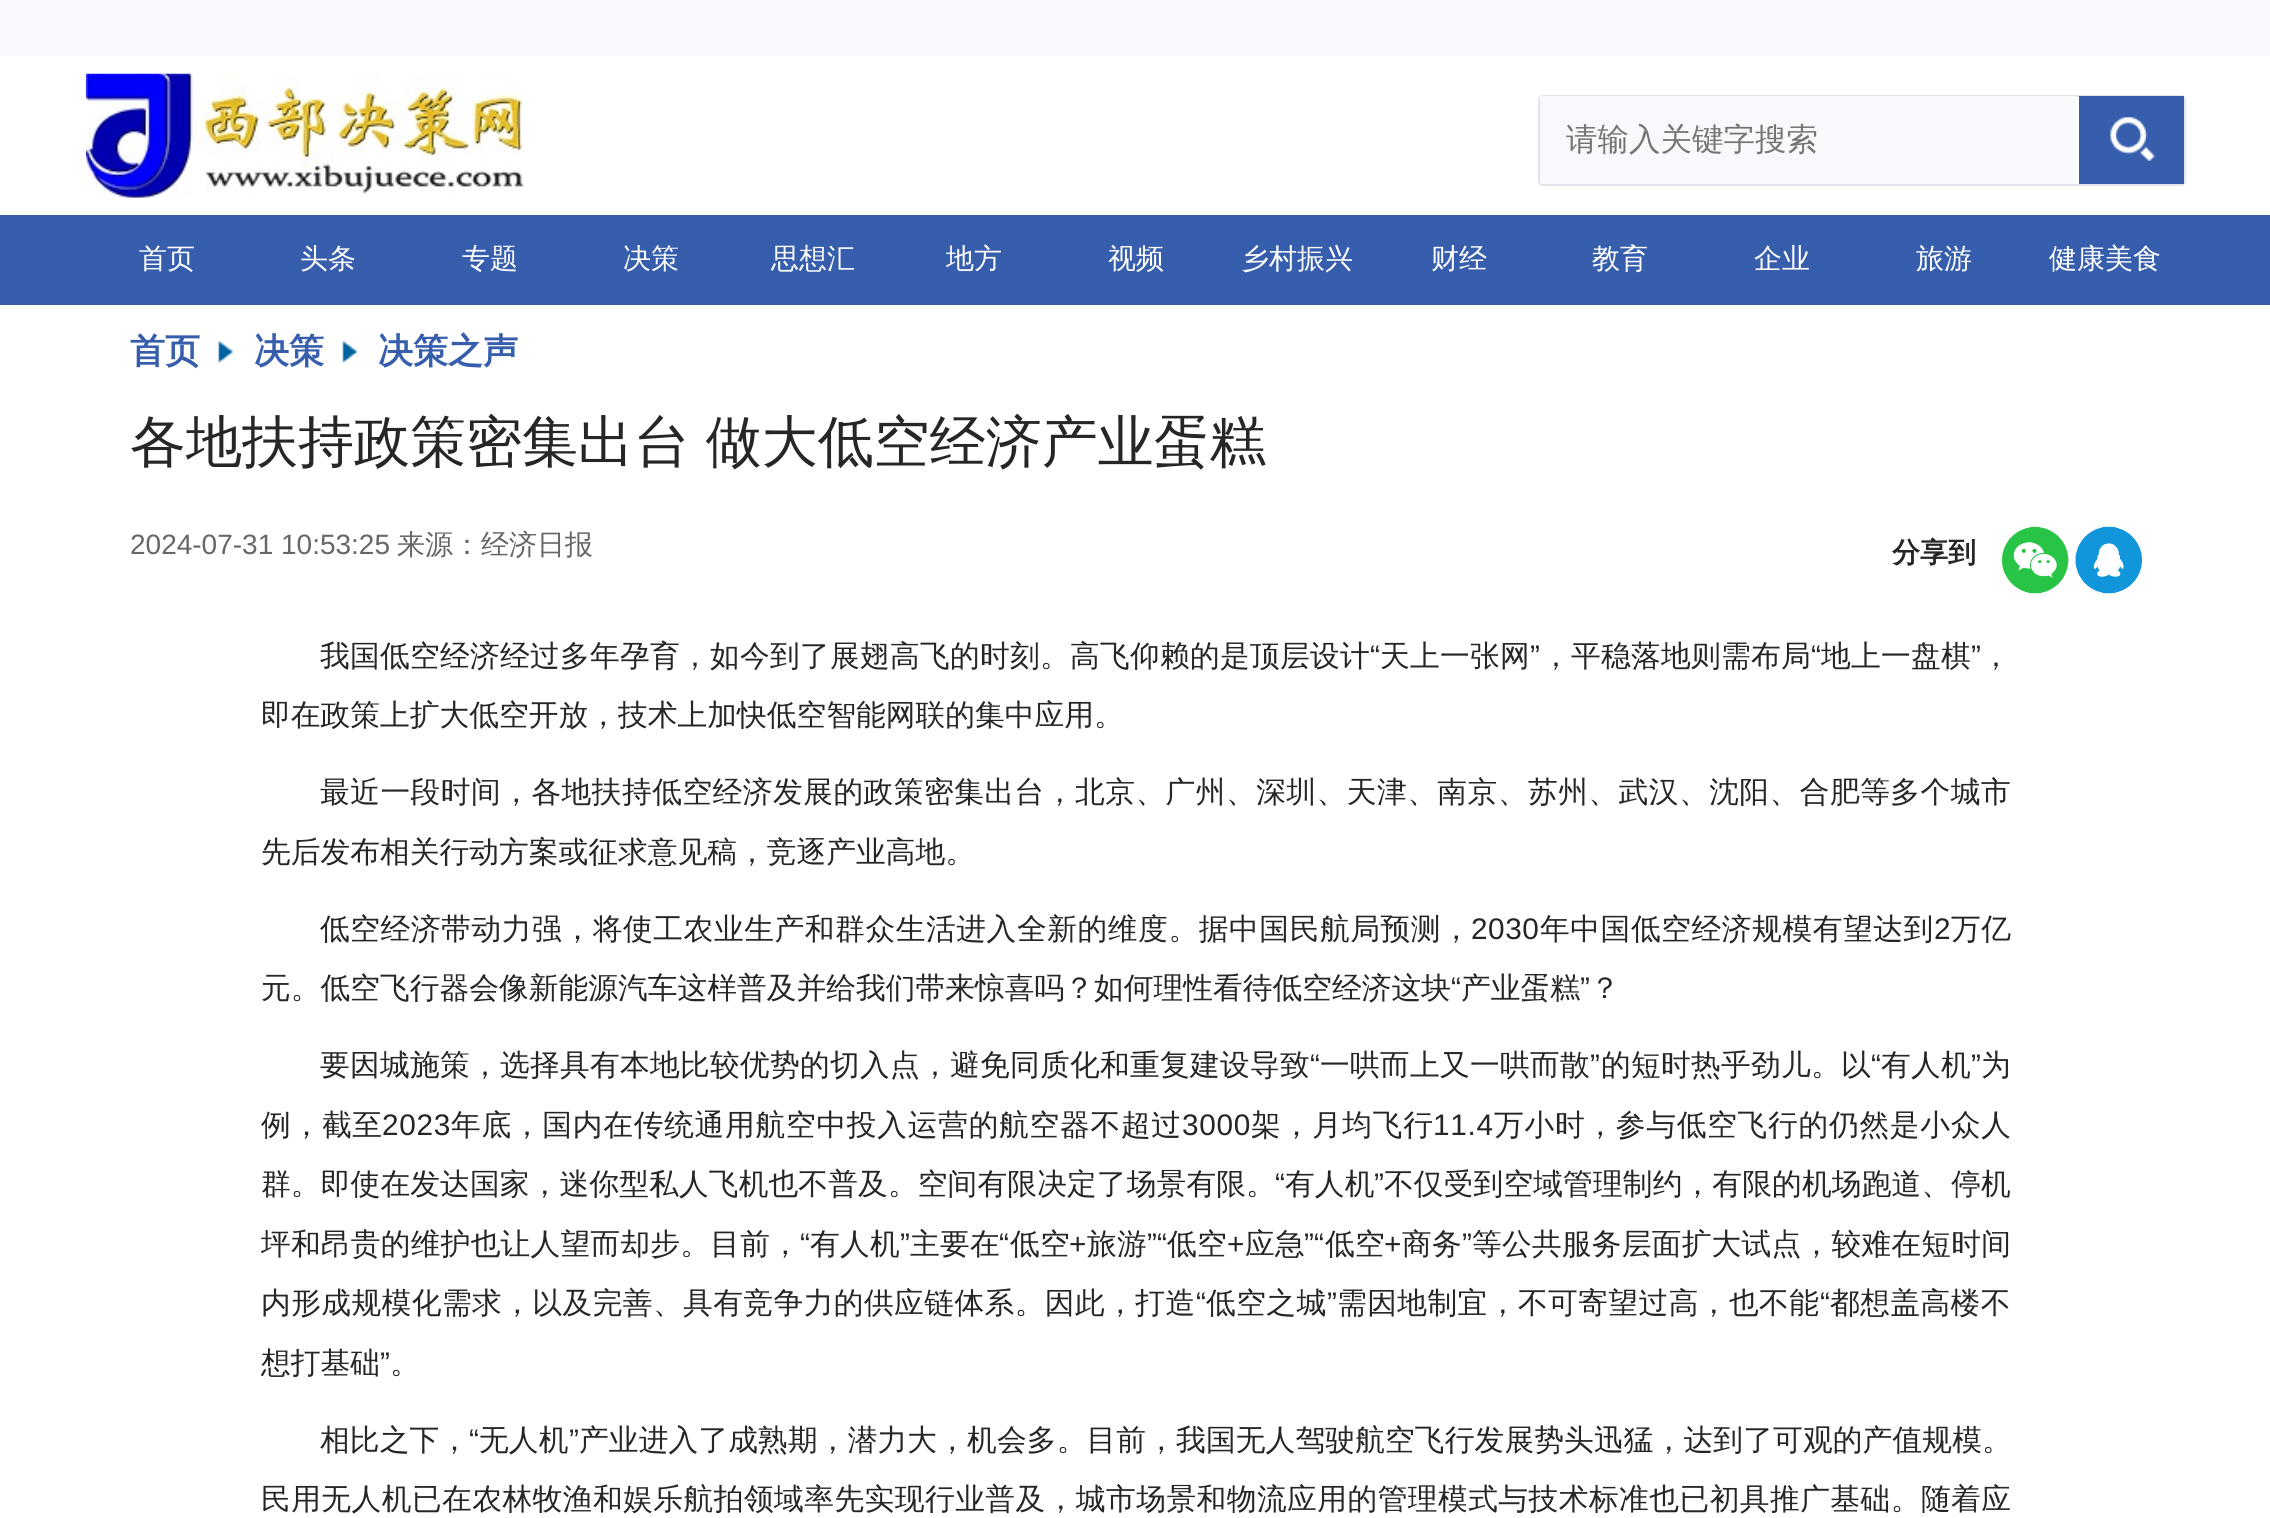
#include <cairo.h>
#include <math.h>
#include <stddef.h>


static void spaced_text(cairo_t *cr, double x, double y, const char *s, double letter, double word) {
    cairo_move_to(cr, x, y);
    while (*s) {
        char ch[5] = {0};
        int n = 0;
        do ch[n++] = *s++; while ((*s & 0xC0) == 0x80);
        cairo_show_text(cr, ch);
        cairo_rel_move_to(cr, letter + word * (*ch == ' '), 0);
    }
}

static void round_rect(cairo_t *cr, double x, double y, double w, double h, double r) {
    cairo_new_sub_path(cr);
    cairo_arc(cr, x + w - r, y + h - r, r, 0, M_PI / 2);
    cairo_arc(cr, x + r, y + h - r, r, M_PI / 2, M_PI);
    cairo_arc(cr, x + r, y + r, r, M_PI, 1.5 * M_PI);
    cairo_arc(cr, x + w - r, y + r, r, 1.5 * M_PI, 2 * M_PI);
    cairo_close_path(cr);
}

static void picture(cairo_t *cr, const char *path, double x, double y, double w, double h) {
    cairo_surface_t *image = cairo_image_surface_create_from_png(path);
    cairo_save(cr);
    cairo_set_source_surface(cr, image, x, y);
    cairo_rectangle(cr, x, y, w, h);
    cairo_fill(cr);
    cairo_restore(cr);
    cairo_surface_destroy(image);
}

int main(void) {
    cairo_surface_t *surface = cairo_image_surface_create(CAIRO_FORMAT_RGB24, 2270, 1518);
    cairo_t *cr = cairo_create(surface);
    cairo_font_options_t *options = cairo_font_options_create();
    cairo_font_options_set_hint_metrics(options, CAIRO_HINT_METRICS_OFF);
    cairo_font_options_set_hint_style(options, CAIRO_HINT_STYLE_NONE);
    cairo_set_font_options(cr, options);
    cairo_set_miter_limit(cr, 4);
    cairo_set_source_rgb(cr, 1, 1, 1);
    cairo_paint(cr);
    cairo_set_source_rgb(cr, 0.969, 0.973, 0.988);
    cairo_rectangle(cr, 0, 0, 2270, 56);
    cairo_fill(cr);
    picture(cr, "img1.png", 85, 73, 439, 125);
    round_rect(cr, 1539, 96, 646, 89, 4);
    cairo_set_source_rgb(cr, 0.886, 0.894, 0.922);
    cairo_stroke(cr);
    cairo_set_source_rgb(cr, 0.969, 0.973, 0.988);
    cairo_rectangle(cr, 1540, 96, 536, 88);
    cairo_fill(cr);
    cairo_select_font_face(cr, "WenQuanYi Zen Hei Medium", CAIRO_FONT_SLANT_NORMAL, CAIRO_FONT_WEIGHT_NORMAL);
    cairo_set_font_size(cr, 31.5);
    cairo_set_source_rgb(cr, 0.459, 0.459, 0.459);
    cairo_move_to(cr, 1566, 150);
    cairo_show_text(cr, "请输入关键字搜索");
    cairo_set_source_rgb(cr, 0.216, 0.369, 0.678);
    cairo_rectangle(cr, 2079, 96, 105, 88);
    cairo_fill(cr);
    picture(cr, "img2.png", 2110, 117, 45, 44);
    cairo_rectangle(cr, 0, 215, 2270, 90);
    cairo_fill(cr);
    cairo_set_font_size(cr, 28);
    cairo_set_source_rgb(cr, 1, 1, 1);
    cairo_move_to(cr, 139, 268);
    cairo_show_text(cr, "首页");
    cairo_move_to(cr, 300, 268);
    cairo_show_text(cr, "头条");
    cairo_move_to(cr, 462, 268);
    cairo_show_text(cr, "专题");
    cairo_move_to(cr, 623, 268);
    cairo_show_text(cr, "决策");
    cairo_move_to(cr, 771, 268);
    cairo_show_text(cr, "思想汇");
    cairo_move_to(cr, 946, 268);
    cairo_show_text(cr, "地方");
    cairo_move_to(cr, 1108, 268);
    cairo_show_text(cr, "视频");
    cairo_move_to(cr, 1241, 268);
    cairo_show_text(cr, "乡村振兴");
    cairo_move_to(cr, 1431, 268);
    cairo_show_text(cr, "财经");
    cairo_move_to(cr, 1592, 268);
    cairo_show_text(cr, "教育");
    cairo_move_to(cr, 1754, 268);
    cairo_show_text(cr, "企业");
    cairo_move_to(cr, 1916, 268);
    cairo_show_text(cr, "旅游");
    cairo_move_to(cr, 2049, 268);
    cairo_show_text(cr, "健康美食");
    cairo_select_font_face(cr, "WenQuanYi Zen Hei", CAIRO_FONT_SLANT_NORMAL, CAIRO_FONT_WEIGHT_BOLD);
    cairo_set_font_size(cr, 35);
    cairo_set_source_rgb(cr, 0.216, 0.369, 0.678);
    cairo_move_to(cr, 130, 363);
    cairo_show_text(cr, "首页");
    picture(cr, "img3.png", 218, 340, 16, 23);
    cairo_move_to(cr, 254, 363);
    cairo_show_text(cr, "决策");
    picture(cr, "img4.png", 342, 340, 16, 23);
    cairo_move_to(cr, 378, 363);
    cairo_show_text(cr, "决策之声");
    cairo_select_font_face(cr, "WenQuanYi Zen Hei Medium", CAIRO_FONT_SLANT_NORMAL, CAIRO_FONT_WEIGHT_NORMAL);
    cairo_set_font_size(cr, 56);
    cairo_set_source_rgb(cr, 0.149, 0.149, 0.149);
    spaced_text(cr, 130, 461, "各地扶持政策密集出台 做大低空经济产业蛋糕", 0, -1);
    cairo_select_font_face(cr, "Liberation Sans", CAIRO_FONT_SLANT_NORMAL, CAIRO_FONT_WEIGHT_NORMAL);
    cairo_set_font_size(cr, 28);
    cairo_set_source_rgb(cr, 0.4, 0.4, 0.4);
    cairo_move_to(cr, 130, 554);
    cairo_show_text(cr, "2024-07-31 10:53:25");
    cairo_select_font_face(cr, "WenQuanYi Zen Hei Medium", CAIRO_FONT_SLANT_NORMAL, CAIRO_FONT_WEIGHT_NORMAL);
    cairo_move_to(cr, 397, 554);
    cairo_show_text(cr, "来源：经济日报");
    cairo_select_font_face(cr, "WenQuanYi Zen Hei", CAIRO_FONT_SLANT_NORMAL, CAIRO_FONT_WEIGHT_BOLD);
    cairo_set_source_rgb(cr, 0.149, 0.149, 0.149);
    cairo_move_to(cr, 1892, 562);
    cairo_show_text(cr, "分享到");
    picture(cr, "img5.png", 2002, 526, 67, 68);
    picture(cr, "img6.png", 2075, 526, 67, 68);
    cairo_select_font_face(cr, "WenQuanYi Zen Hei Medium", CAIRO_FONT_SLANT_NORMAL, CAIRO_FONT_WEIGHT_NORMAL);
    cairo_set_font_size(cr, 29.75);
    spaced_text(cr, 320, 666, "我国低空经济经过多年孕育，如今到了展翅高飞的时刻。高飞仰赖的是顶层设计", 0.25, 0);
    cairo_select_font_face(cr, "Liberation Sans", CAIRO_FONT_SLANT_NORMAL, CAIRO_FONT_WEIGHT_NORMAL);
    spaced_text(cr, 1370, 666, "“", 0.25, 0);
    cairo_select_font_face(cr, "WenQuanYi Zen Hei Medium", CAIRO_FONT_SLANT_NORMAL, CAIRO_FONT_WEIGHT_NORMAL);
    spaced_text(cr, 1380, 666, "天上一张网", 0.25, 0);
    cairo_select_font_face(cr, "Liberation Sans", CAIRO_FONT_SLANT_NORMAL, CAIRO_FONT_WEIGHT_NORMAL);
    spaced_text(cr, 1530, 666, "”", 0.25, 0);
    cairo_select_font_face(cr, "WenQuanYi Zen Hei Medium", CAIRO_FONT_SLANT_NORMAL, CAIRO_FONT_WEIGHT_NORMAL);
    spaced_text(cr, 1541, 666, "，平稳落地则需布局", 0.25, 0);
    cairo_select_font_face(cr, "Liberation Sans", CAIRO_FONT_SLANT_NORMAL, CAIRO_FONT_WEIGHT_NORMAL);
    spaced_text(cr, 1811, 666, "“", 0.25, 0);
    cairo_select_font_face(cr, "WenQuanYi Zen Hei Medium", CAIRO_FONT_SLANT_NORMAL, CAIRO_FONT_WEIGHT_NORMAL);
    spaced_text(cr, 1821, 666, "地上一盘棋", 0.25, 0);
    cairo_select_font_face(cr, "Liberation Sans", CAIRO_FONT_SLANT_NORMAL, CAIRO_FONT_WEIGHT_NORMAL);
    spaced_text(cr, 1971, 666, "”", 0.25, 0);
    cairo_select_font_face(cr, "WenQuanYi Zen Hei Medium", CAIRO_FONT_SLANT_NORMAL, CAIRO_FONT_WEIGHT_NORMAL);
    spaced_text(cr, 1981, 666, "，", 0.25, 0);
    cairo_move_to(cr, 261, 725);
    cairo_show_text(cr, "即在政策上扩大低空开放，技术上加快低空智能网联的集中应用。");
    spaced_text(cr, 320, 802, "最近一段时间，各地扶持低空经济发展的政策密集出台，北京、广州、深圳、天津、南京、苏州、武汉、沈阳、合肥等多个城市", 0.45, 0);
    cairo_move_to(cr, 261, 862);
    cairo_show_text(cr, "先后发布相关行动方案或征求意见稿，竞逐产业高地。");
    spaced_text(cr, 320, 939, "低空经济带动力强，将使工农业生产和群众生活进入全新的维度。据中国民航局预测，", 0.55, 0);
    cairo_select_font_face(cr, "Liberation Sans", CAIRO_FONT_SLANT_NORMAL, CAIRO_FONT_WEIGHT_NORMAL);
    spaced_text(cr, 1471, 939, "2030", 0.55, 0);
    cairo_select_font_face(cr, "WenQuanYi Zen Hei Medium", CAIRO_FONT_SLANT_NORMAL, CAIRO_FONT_WEIGHT_NORMAL);
    spaced_text(cr, 1540, 939, "年中国低空经济规模有望达到", 0.55, 0);
    cairo_select_font_face(cr, "Liberation Sans", CAIRO_FONT_SLANT_NORMAL, CAIRO_FONT_WEIGHT_NORMAL);
    spaced_text(cr, 1934, 939, "2", 0.55, 0);
    cairo_select_font_face(cr, "WenQuanYi Zen Hei Medium", CAIRO_FONT_SLANT_NORMAL, CAIRO_FONT_WEIGHT_NORMAL);
    spaced_text(cr, 1951, 939, "万亿", 0.55, 0);
    cairo_move_to(cr, 261, 998);
    cairo_show_text(cr, "元。低空飞行器会像新能源汽车这样普及并给我们带来惊喜吗？如何理性看待低空经济这块");
    cairo_select_font_face(cr, "Liberation Sans", CAIRO_FONT_SLANT_NORMAL, CAIRO_FONT_WEIGHT_NORMAL);
    cairo_move_to(cr, 1451, 998);
    cairo_show_text(cr, "“");
    cairo_select_font_face(cr, "WenQuanYi Zen Hei Medium", CAIRO_FONT_SLANT_NORMAL, CAIRO_FONT_WEIGHT_NORMAL);
    cairo_move_to(cr, 1461, 998);
    cairo_show_text(cr, "产业蛋糕");
    cairo_select_font_face(cr, "Liberation Sans", CAIRO_FONT_SLANT_NORMAL, CAIRO_FONT_WEIGHT_NORMAL);
    cairo_move_to(cr, 1580, 998);
    cairo_show_text(cr, "”");
    cairo_select_font_face(cr, "WenQuanYi Zen Hei Medium", CAIRO_FONT_SLANT_NORMAL, CAIRO_FONT_WEIGHT_NORMAL);
    cairo_move_to(cr, 1590, 998);
    cairo_show_text(cr, "？");
    spaced_text(cr, 320, 1075, "要因城施策，选择具有本地比较优势的切入点，避免同质化和重复建设导致", 0.25, 0);
    cairo_select_font_face(cr, "Liberation Sans", CAIRO_FONT_SLANT_NORMAL, CAIRO_FONT_WEIGHT_NORMAL);
    spaced_text(cr, 1310, 1075, "“", 0.25, 0);
    cairo_select_font_face(cr, "WenQuanYi Zen Hei Medium", CAIRO_FONT_SLANT_NORMAL, CAIRO_FONT_WEIGHT_NORMAL);
    spaced_text(cr, 1320, 1075, "一哄而上又一哄而散", 0.25, 0);
    cairo_select_font_face(cr, "Liberation Sans", CAIRO_FONT_SLANT_NORMAL, CAIRO_FONT_WEIGHT_NORMAL);
    spaced_text(cr, 1590, 1075, "”", 0.25, 0);
    cairo_select_font_face(cr, "WenQuanYi Zen Hei Medium", CAIRO_FONT_SLANT_NORMAL, CAIRO_FONT_WEIGHT_NORMAL);
    spaced_text(cr, 1601, 1075, "的短时热乎劲儿。以", 0.25, 0);
    cairo_select_font_face(cr, "Liberation Sans", CAIRO_FONT_SLANT_NORMAL, CAIRO_FONT_WEIGHT_NORMAL);
    spaced_text(cr, 1871, 1075, "“", 0.25, 0);
    cairo_select_font_face(cr, "WenQuanYi Zen Hei Medium", CAIRO_FONT_SLANT_NORMAL, CAIRO_FONT_WEIGHT_NORMAL);
    spaced_text(cr, 1881, 1075, "有人机", 0.25, 0);
    cairo_select_font_face(cr, "Liberation Sans", CAIRO_FONT_SLANT_NORMAL, CAIRO_FONT_WEIGHT_NORMAL);
    spaced_text(cr, 1971, 1075, "”", 0.25, 0);
    cairo_select_font_face(cr, "WenQuanYi Zen Hei Medium", CAIRO_FONT_SLANT_NORMAL, CAIRO_FONT_WEIGHT_NORMAL);
    spaced_text(cr, 1981, 1075, "为", 0.25, 0);
    spaced_text(cr, 261, 1135, "例，截至", 0.7, 0);
    cairo_select_font_face(cr, "Liberation Sans", CAIRO_FONT_SLANT_NORMAL, CAIRO_FONT_WEIGHT_NORMAL);
    spaced_text(cr, 382, 1135, "2023", 0.7, 0);
    cairo_select_font_face(cr, "WenQuanYi Zen Hei Medium", CAIRO_FONT_SLANT_NORMAL, CAIRO_FONT_WEIGHT_NORMAL);
    spaced_text(cr, 451, 1135, "年底，国内在传统通用航空中投入运营的航空器不超过", 0.7, 0);
    cairo_select_font_face(cr, "Liberation Sans", CAIRO_FONT_SLANT_NORMAL, CAIRO_FONT_WEIGHT_NORMAL);
    spaced_text(cr, 1182, 1135, "3000", 0.7, 0);
    cairo_select_font_face(cr, "WenQuanYi Zen Hei Medium", CAIRO_FONT_SLANT_NORMAL, CAIRO_FONT_WEIGHT_NORMAL);
    spaced_text(cr, 1251, 1135, "架，月均飞行", 0.7, 0);
    cairo_select_font_face(cr, "Liberation Sans", CAIRO_FONT_SLANT_NORMAL, CAIRO_FONT_WEIGHT_NORMAL);
    spaced_text(cr, 1433, 1135, "11.4", 0.7, 0);
    cairo_select_font_face(cr, "WenQuanYi Zen Hei Medium", CAIRO_FONT_SLANT_NORMAL, CAIRO_FONT_WEIGHT_NORMAL);
    spaced_text(cr, 1494, 1135, "万小时，参与低空飞行的仍然是小众人", 0.7, 0);
    spaced_text(cr, 261, 1194, "群。即使在发达国家，迷你型私人飞机也不普及。空间有限决定了场景有限。", 0.1, 0);
    cairo_select_font_face(cr, "Liberation Sans", CAIRO_FONT_SLANT_NORMAL, CAIRO_FONT_WEIGHT_NORMAL);
    spaced_text(cr, 1275, 1194, "“", 0.1, 0);
    cairo_select_font_face(cr, "WenQuanYi Zen Hei Medium", CAIRO_FONT_SLANT_NORMAL, CAIRO_FONT_WEIGHT_NORMAL);
    spaced_text(cr, 1285, 1194, "有人机", 0.1, 0);
    cairo_select_font_face(cr, "Liberation Sans", CAIRO_FONT_SLANT_NORMAL, CAIRO_FONT_WEIGHT_NORMAL);
    spaced_text(cr, 1374, 1194, "”", 0.1, 0);
    cairo_select_font_face(cr, "WenQuanYi Zen Hei Medium", CAIRO_FONT_SLANT_NORMAL, CAIRO_FONT_WEIGHT_NORMAL);
    spaced_text(cr, 1384, 1194, "不仅受到空域管理制约，有限的机场跑道、停机", 0.1, 0);
    spaced_text(cr, 261, 1254, "坪和昂贵的维护也让人望而却步。目前，", 0.2, 0);
    cairo_select_font_face(cr, "Liberation Sans", CAIRO_FONT_SLANT_NORMAL, CAIRO_FONT_WEIGHT_NORMAL);
    spaced_text(cr, 800, 1254, "“", 0.2, 0);
    cairo_select_font_face(cr, "WenQuanYi Zen Hei Medium", CAIRO_FONT_SLANT_NORMAL, CAIRO_FONT_WEIGHT_NORMAL);
    spaced_text(cr, 810, 1254, "有人机", 0.2, 0);
    cairo_select_font_face(cr, "Liberation Sans", CAIRO_FONT_SLANT_NORMAL, CAIRO_FONT_WEIGHT_NORMAL);
    spaced_text(cr, 900, 1254, "”", 0.2, 0);
    cairo_select_font_face(cr, "WenQuanYi Zen Hei Medium", CAIRO_FONT_SLANT_NORMAL, CAIRO_FONT_WEIGHT_NORMAL);
    spaced_text(cr, 910, 1254, "主要在", 0.2, 0);
    cairo_select_font_face(cr, "Liberation Sans", CAIRO_FONT_SLANT_NORMAL, CAIRO_FONT_WEIGHT_NORMAL);
    spaced_text(cr, 999, 1254, "“", 0.2, 0);
    cairo_select_font_face(cr, "WenQuanYi Zen Hei Medium", CAIRO_FONT_SLANT_NORMAL, CAIRO_FONT_WEIGHT_NORMAL);
    spaced_text(cr, 1010, 1254, "低空", 0.2, 0);
    cairo_select_font_face(cr, "Liberation Sans", CAIRO_FONT_SLANT_NORMAL, CAIRO_FONT_WEIGHT_NORMAL);
    spaced_text(cr, 1069, 1254, "+", 0.2, 0);
    cairo_select_font_face(cr, "WenQuanYi Zen Hei Medium", CAIRO_FONT_SLANT_NORMAL, CAIRO_FONT_WEIGHT_NORMAL);
    spaced_text(cr, 1087, 1254, "旅游", 0.2, 0);
    cairo_select_font_face(cr, "Liberation Sans", CAIRO_FONT_SLANT_NORMAL, CAIRO_FONT_WEIGHT_NORMAL);
    spaced_text(cr, 1147, 1254, "”“", 0.2, 0);
    cairo_select_font_face(cr, "WenQuanYi Zen Hei Medium", CAIRO_FONT_SLANT_NORMAL, CAIRO_FONT_WEIGHT_NORMAL);
    spaced_text(cr, 1167, 1254, "低空", 0.2, 0);
    cairo_select_font_face(cr, "Liberation Sans", CAIRO_FONT_SLANT_NORMAL, CAIRO_FONT_WEIGHT_NORMAL);
    spaced_text(cr, 1227, 1254, "+", 0.2, 0);
    cairo_select_font_face(cr, "WenQuanYi Zen Hei Medium", CAIRO_FONT_SLANT_NORMAL, CAIRO_FONT_WEIGHT_NORMAL);
    spaced_text(cr, 1245, 1254, "应急", 0.2, 0);
    cairo_select_font_face(cr, "Liberation Sans", CAIRO_FONT_SLANT_NORMAL, CAIRO_FONT_WEIGHT_NORMAL);
    spaced_text(cr, 1304, 1254, "”“", 0.2, 0);
    cairo_select_font_face(cr, "WenQuanYi Zen Hei Medium", CAIRO_FONT_SLANT_NORMAL, CAIRO_FONT_WEIGHT_NORMAL);
    spaced_text(cr, 1325, 1254, "低空", 0.2, 0);
    cairo_select_font_face(cr, "Liberation Sans", CAIRO_FONT_SLANT_NORMAL, CAIRO_FONT_WEIGHT_NORMAL);
    spaced_text(cr, 1384, 1254, "+", 0.2, 0);
    cairo_select_font_face(cr, "WenQuanYi Zen Hei Medium", CAIRO_FONT_SLANT_NORMAL, CAIRO_FONT_WEIGHT_NORMAL);
    spaced_text(cr, 1402, 1254, "商务", 0.2, 0);
    cairo_select_font_face(cr, "Liberation Sans", CAIRO_FONT_SLANT_NORMAL, CAIRO_FONT_WEIGHT_NORMAL);
    spaced_text(cr, 1462, 1254, "”", 0.2, 0);
    cairo_select_font_face(cr, "WenQuanYi Zen Hei Medium", CAIRO_FONT_SLANT_NORMAL, CAIRO_FONT_WEIGHT_NORMAL);
    spaced_text(cr, 1472, 1254, "等公共服务层面扩大试点，较难在短时间", 0.2, 0);
    spaced_text(cr, 261, 1313, "内形成规模化需求，以及完善、具有竞争力的供应链体系。因此，打造", 0.4, 0);
    cairo_select_font_face(cr, "Liberation Sans", CAIRO_FONT_SLANT_NORMAL, CAIRO_FONT_WEIGHT_NORMAL);
    spaced_text(cr, 1196, 1313, "“", 0.4, 0);
    cairo_select_font_face(cr, "WenQuanYi Zen Hei Medium", CAIRO_FONT_SLANT_NORMAL, CAIRO_FONT_WEIGHT_NORMAL);
    spaced_text(cr, 1206, 1313, "低空之城", 0.4, 0);
    cairo_select_font_face(cr, "Liberation Sans", CAIRO_FONT_SLANT_NORMAL, CAIRO_FONT_WEIGHT_NORMAL);
    spaced_text(cr, 1327, 1313, "”", 0.4, 0);
    cairo_select_font_face(cr, "WenQuanYi Zen Hei Medium", CAIRO_FONT_SLANT_NORMAL, CAIRO_FONT_WEIGHT_NORMAL);
    spaced_text(cr, 1337, 1313, "需因地制宜，不可寄望过高，也不能", 0.4, 0);
    cairo_select_font_face(cr, "Liberation Sans", CAIRO_FONT_SLANT_NORMAL, CAIRO_FONT_WEIGHT_NORMAL);
    spaced_text(cr, 1820, 1313, "“", 0.4, 0);
    cairo_select_font_face(cr, "WenQuanYi Zen Hei Medium", CAIRO_FONT_SLANT_NORMAL, CAIRO_FONT_WEIGHT_NORMAL);
    spaced_text(cr, 1830, 1313, "都想盖高楼不", 0.4, 0);
    cairo_move_to(cr, 261, 1373);
    cairo_show_text(cr, "想打基础");
    cairo_select_font_face(cr, "Liberation Sans", CAIRO_FONT_SLANT_NORMAL, CAIRO_FONT_WEIGHT_NORMAL);
    cairo_move_to(cr, 380, 1373);
    cairo_show_text(cr, "”");
    cairo_select_font_face(cr, "WenQuanYi Zen Hei Medium", CAIRO_FONT_SLANT_NORMAL, CAIRO_FONT_WEIGHT_NORMAL);
    cairo_move_to(cr, 390, 1373);
    cairo_show_text(cr, "。");
    spaced_text(cr, 320, 1450, "相比之下，", 0.1, 0);
    cairo_select_font_face(cr, "Liberation Sans", CAIRO_FONT_SLANT_NORMAL, CAIRO_FONT_WEIGHT_NORMAL);
    spaced_text(cr, 469, 1450, "“", 0.1, 0);
    cairo_select_font_face(cr, "WenQuanYi Zen Hei Medium", CAIRO_FONT_SLANT_NORMAL, CAIRO_FONT_WEIGHT_NORMAL);
    spaced_text(cr, 479, 1450, "无人机", 0.1, 0);
    cairo_select_font_face(cr, "Liberation Sans", CAIRO_FONT_SLANT_NORMAL, CAIRO_FONT_WEIGHT_NORMAL);
    spaced_text(cr, 569, 1450, "”", 0.1, 0);
    cairo_select_font_face(cr, "WenQuanYi Zen Hei Medium", CAIRO_FONT_SLANT_NORMAL, CAIRO_FONT_WEIGHT_NORMAL);
    spaced_text(cr, 579, 1450, "产业进入了成熟期，潜力大，机会多。目前，我国无人驾驶航空飞行发展势头迅猛，达到了可观的产值规模。", 0.1, 0);
    spaced_text(cr, 261, 1509, "民用无人机已在农林牧渔和娱乐航拍领域率先实现行业普及，城市场景和物流应用的管理模式与技术标准也已初具推广基础。随着应", 0.43, 0);
    cairo_surface_write_to_png(surface, "page.png");
    cairo_font_options_destroy(options);
    cairo_destroy(cr);
    cairo_surface_destroy(surface);
    return 0;
}
